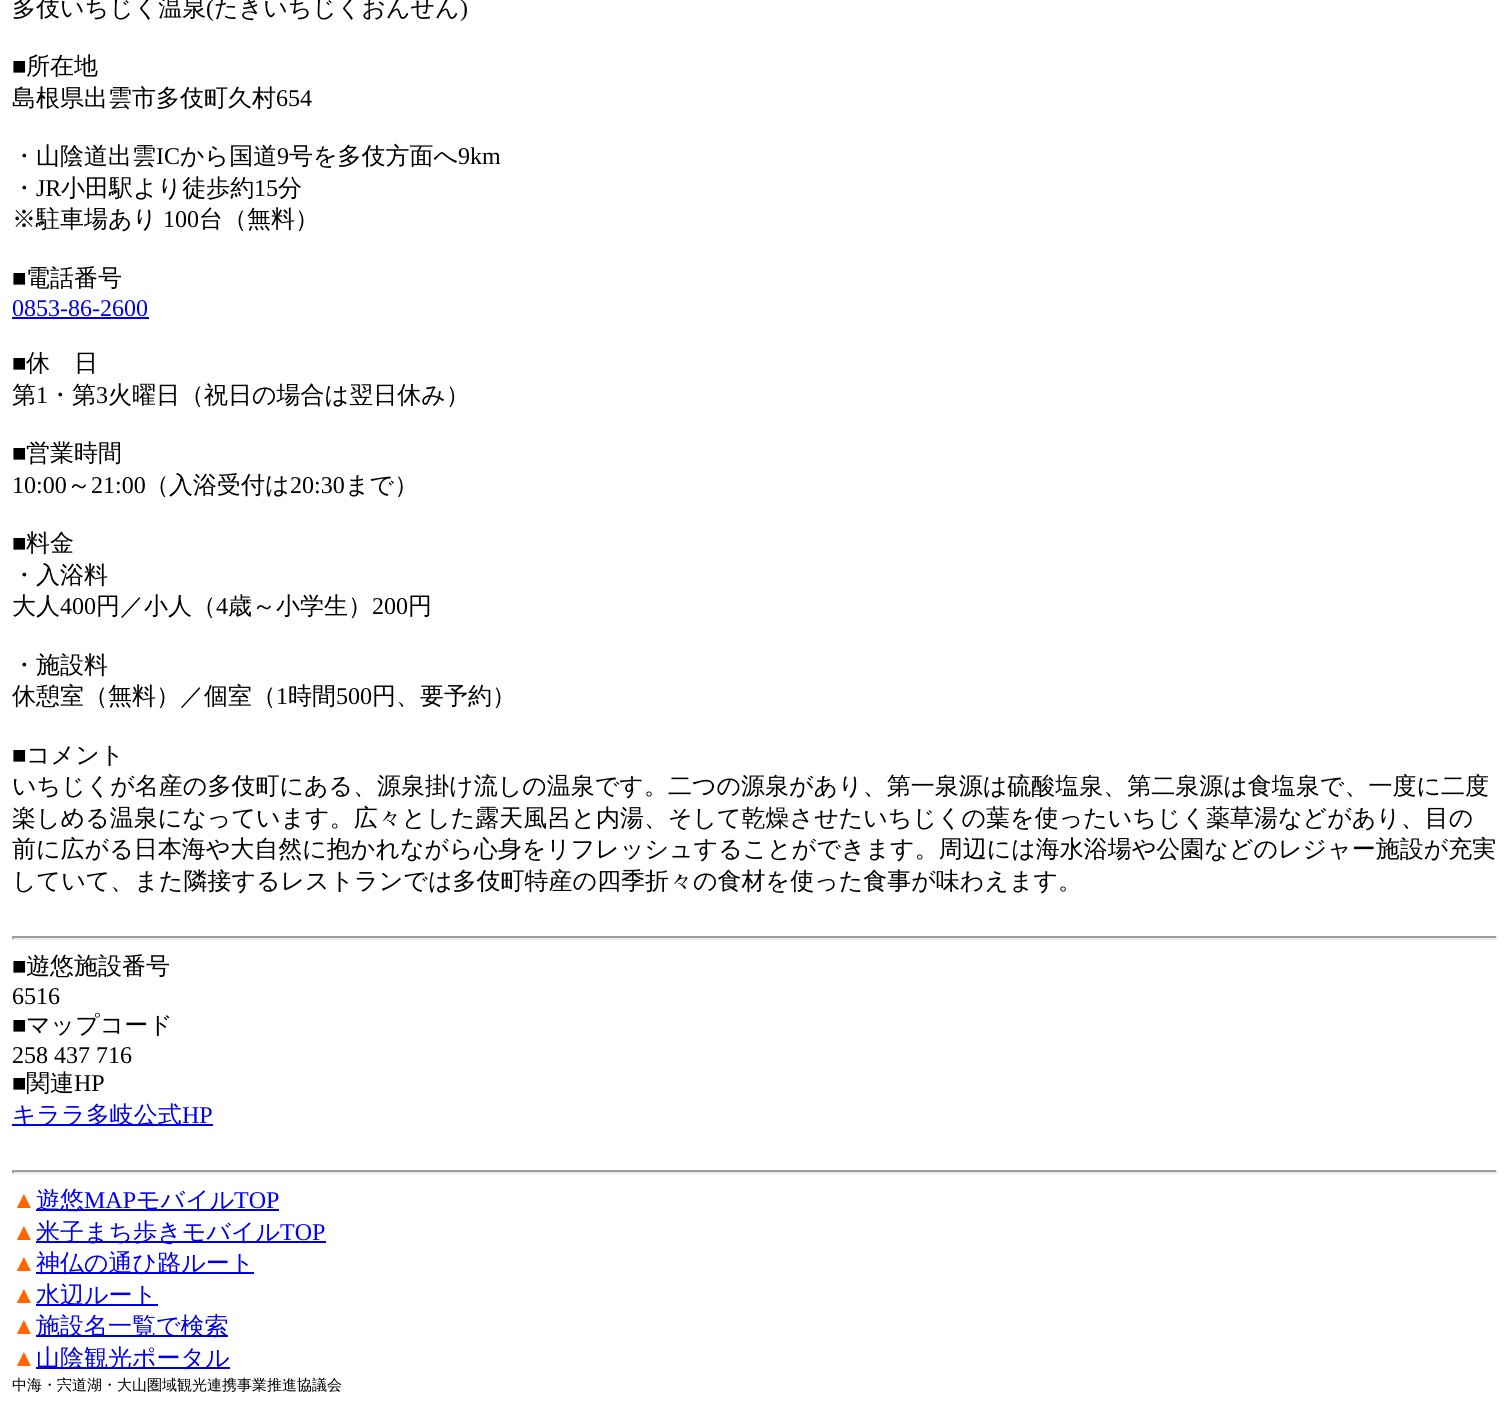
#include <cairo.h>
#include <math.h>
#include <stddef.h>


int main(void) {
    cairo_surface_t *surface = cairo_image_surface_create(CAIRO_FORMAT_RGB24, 1509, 1406);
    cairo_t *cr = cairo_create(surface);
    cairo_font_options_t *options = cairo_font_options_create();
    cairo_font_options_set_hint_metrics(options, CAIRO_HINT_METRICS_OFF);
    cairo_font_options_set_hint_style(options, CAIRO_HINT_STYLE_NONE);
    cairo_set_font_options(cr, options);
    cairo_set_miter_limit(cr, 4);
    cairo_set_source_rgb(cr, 1, 1, 1);
    cairo_paint(cr);
    cairo_select_font_face(cr, "WenQuanYi Zen Hei Medium", CAIRO_FONT_SLANT_NORMAL, CAIRO_FONT_WEIGHT_NORMAL);
    cairo_set_font_size(cr, 24);
    cairo_set_source_rgb(cr, 0, 0, 0);
    cairo_move_to(cr, 12, 16);
    cairo_show_text(cr, "多伎いちじく温泉");
    cairo_select_font_face(cr, "Liberation Serif", CAIRO_FONT_SLANT_NORMAL, CAIRO_FONT_WEIGHT_NORMAL);
    cairo_move_to(cr, 206, 16);
    cairo_show_text(cr, "(");
    cairo_select_font_face(cr, "WenQuanYi Zen Hei Medium", CAIRO_FONT_SLANT_NORMAL, CAIRO_FONT_WEIGHT_NORMAL);
    cairo_move_to(cr, 214, 16);
    cairo_show_text(cr, "たきいちじくおんせん");
    cairo_select_font_face(cr, "Liberation Serif", CAIRO_FONT_SLANT_NORMAL, CAIRO_FONT_WEIGHT_NORMAL);
    cairo_move_to(cr, 460, 16);
    cairo_show_text(cr, ")");
    cairo_move_to(cr, 12, 74);
    cairo_show_text(cr, "■");
    cairo_select_font_face(cr, "WenQuanYi Zen Hei Medium", CAIRO_FONT_SLANT_NORMAL, CAIRO_FONT_WEIGHT_NORMAL);
    cairo_move_to(cr, 26, 74);
    cairo_show_text(cr, "所在地");
    cairo_move_to(cr, 12, 106);
    cairo_show_text(cr, "島根県出雲市多伎町久村");
    cairo_select_font_face(cr, "Liberation Serif", CAIRO_FONT_SLANT_NORMAL, CAIRO_FONT_WEIGHT_NORMAL);
    cairo_move_to(cr, 276, 106);
    cairo_show_text(cr, "654");
    cairo_select_font_face(cr, "WenQuanYi Zen Hei Medium", CAIRO_FONT_SLANT_NORMAL, CAIRO_FONT_WEIGHT_NORMAL);
    cairo_move_to(cr, 12, 164);
    cairo_show_text(cr, "・山陰道出雲");
    cairo_select_font_face(cr, "Liberation Serif", CAIRO_FONT_SLANT_NORMAL, CAIRO_FONT_WEIGHT_NORMAL);
    cairo_move_to(cr, 156, 164);
    cairo_show_text(cr, "IC");
    cairo_select_font_face(cr, "WenQuanYi Zen Hei Medium", CAIRO_FONT_SLANT_NORMAL, CAIRO_FONT_WEIGHT_NORMAL);
    cairo_move_to(cr, 180, 164);
    cairo_show_text(cr, "から国道");
    cairo_select_font_face(cr, "Liberation Serif", CAIRO_FONT_SLANT_NORMAL, CAIRO_FONT_WEIGHT_NORMAL);
    cairo_move_to(cr, 277, 164);
    cairo_show_text(cr, "9");
    cairo_select_font_face(cr, "WenQuanYi Zen Hei Medium", CAIRO_FONT_SLANT_NORMAL, CAIRO_FONT_WEIGHT_NORMAL);
    cairo_move_to(cr, 289, 164);
    cairo_show_text(cr, "号を多伎方面へ");
    cairo_select_font_face(cr, "Liberation Serif", CAIRO_FONT_SLANT_NORMAL, CAIRO_FONT_WEIGHT_NORMAL);
    cairo_move_to(cr, 458, 164);
    cairo_show_text(cr, "9km");
    cairo_select_font_face(cr, "WenQuanYi Zen Hei Medium", CAIRO_FONT_SLANT_NORMAL, CAIRO_FONT_WEIGHT_NORMAL);
    cairo_move_to(cr, 12, 196);
    cairo_show_text(cr, "・");
    cairo_select_font_face(cr, "Liberation Serif", CAIRO_FONT_SLANT_NORMAL, CAIRO_FONT_WEIGHT_NORMAL);
    cairo_move_to(cr, 36, 196);
    cairo_show_text(cr, "JR");
    cairo_select_font_face(cr, "WenQuanYi Zen Hei Medium", CAIRO_FONT_SLANT_NORMAL, CAIRO_FONT_WEIGHT_NORMAL);
    cairo_move_to(cr, 61, 196);
    cairo_show_text(cr, "小田駅より徒歩約");
    cairo_select_font_face(cr, "Liberation Serif", CAIRO_FONT_SLANT_NORMAL, CAIRO_FONT_WEIGHT_NORMAL);
    cairo_move_to(cr, 254, 196);
    cairo_show_text(cr, "15");
    cairo_select_font_face(cr, "WenQuanYi Zen Hei Medium", CAIRO_FONT_SLANT_NORMAL, CAIRO_FONT_WEIGHT_NORMAL);
    cairo_move_to(cr, 278, 196);
    cairo_show_text(cr, "分");
    cairo_move_to(cr, 12, 227);
    cairo_show_text(cr, "※駐車場あり");
    cairo_select_font_face(cr, "Liberation Serif", CAIRO_FONT_SLANT_NORMAL, CAIRO_FONT_WEIGHT_NORMAL);
    cairo_move_to(cr, 163, 227);
    cairo_show_text(cr, "100");
    cairo_select_font_face(cr, "WenQuanYi Zen Hei Medium", CAIRO_FONT_SLANT_NORMAL, CAIRO_FONT_WEIGHT_NORMAL);
    cairo_move_to(cr, 199, 227);
    cairo_show_text(cr, "台（無料）");
    cairo_select_font_face(cr, "Liberation Serif", CAIRO_FONT_SLANT_NORMAL, CAIRO_FONT_WEIGHT_NORMAL);
    cairo_move_to(cr, 12, 286);
    cairo_show_text(cr, "■");
    cairo_select_font_face(cr, "WenQuanYi Zen Hei Medium", CAIRO_FONT_SLANT_NORMAL, CAIRO_FONT_WEIGHT_NORMAL);
    cairo_move_to(cr, 26, 286);
    cairo_show_text(cr, "電話番号");
    cairo_select_font_face(cr, "Liberation Serif", CAIRO_FONT_SLANT_NORMAL, CAIRO_FONT_WEIGHT_NORMAL);
    cairo_set_source_rgb(cr, 0, 0, 0.933);
    cairo_move_to(cr, 12, 316);
    cairo_show_text(cr, "0853-86-2600");
    cairo_rectangle(cr, 12, 317, 137, 2);
    cairo_fill(cr);
    cairo_set_source_rgb(cr, 0, 0, 0);
    cairo_move_to(cr, 12, 371);
    cairo_show_text(cr, "■");
    cairo_select_font_face(cr, "WenQuanYi Zen Hei Medium", CAIRO_FONT_SLANT_NORMAL, CAIRO_FONT_WEIGHT_NORMAL);
    cairo_move_to(cr, 26, 371);
    cairo_show_text(cr, "休　日");
    cairo_move_to(cr, 12, 403);
    cairo_show_text(cr, "第");
    cairo_select_font_face(cr, "Liberation Serif", CAIRO_FONT_SLANT_NORMAL, CAIRO_FONT_WEIGHT_NORMAL);
    cairo_move_to(cr, 36, 403);
    cairo_show_text(cr, "1");
    cairo_select_font_face(cr, "WenQuanYi Zen Hei Medium", CAIRO_FONT_SLANT_NORMAL, CAIRO_FONT_WEIGHT_NORMAL);
    cairo_move_to(cr, 48, 403);
    cairo_show_text(cr, "・第");
    cairo_select_font_face(cr, "Liberation Serif", CAIRO_FONT_SLANT_NORMAL, CAIRO_FONT_WEIGHT_NORMAL);
    cairo_move_to(cr, 96, 403);
    cairo_show_text(cr, "3");
    cairo_select_font_face(cr, "WenQuanYi Zen Hei Medium", CAIRO_FONT_SLANT_NORMAL, CAIRO_FONT_WEIGHT_NORMAL);
    cairo_move_to(cr, 108, 403);
    cairo_show_text(cr, "火曜日（祝日の場合は翌日休み）");
    cairo_select_font_face(cr, "Liberation Serif", CAIRO_FONT_SLANT_NORMAL, CAIRO_FONT_WEIGHT_NORMAL);
    cairo_move_to(cr, 12, 461);
    cairo_show_text(cr, "■");
    cairo_select_font_face(cr, "WenQuanYi Zen Hei Medium", CAIRO_FONT_SLANT_NORMAL, CAIRO_FONT_WEIGHT_NORMAL);
    cairo_move_to(cr, 26, 461);
    cairo_show_text(cr, "営業時間");
    cairo_select_font_face(cr, "Liberation Serif", CAIRO_FONT_SLANT_NORMAL, CAIRO_FONT_WEIGHT_NORMAL);
    cairo_move_to(cr, 12, 493);
    cairo_show_text(cr, "10:00");
    cairo_select_font_face(cr, "WenQuanYi Zen Hei Medium", CAIRO_FONT_SLANT_NORMAL, CAIRO_FONT_WEIGHT_NORMAL);
    cairo_move_to(cr, 67, 493);
    cairo_show_text(cr, "～");
    cairo_select_font_face(cr, "Liberation Serif", CAIRO_FONT_SLANT_NORMAL, CAIRO_FONT_WEIGHT_NORMAL);
    cairo_move_to(cr, 91, 493);
    cairo_show_text(cr, "21:00");
    cairo_select_font_face(cr, "WenQuanYi Zen Hei Medium", CAIRO_FONT_SLANT_NORMAL, CAIRO_FONT_WEIGHT_NORMAL);
    cairo_move_to(cr, 145, 493);
    cairo_show_text(cr, "（入浴受付は");
    cairo_select_font_face(cr, "Liberation Serif", CAIRO_FONT_SLANT_NORMAL, CAIRO_FONT_WEIGHT_NORMAL);
    cairo_move_to(cr, 290, 493);
    cairo_show_text(cr, "20:30");
    cairo_select_font_face(cr, "WenQuanYi Zen Hei Medium", CAIRO_FONT_SLANT_NORMAL, CAIRO_FONT_WEIGHT_NORMAL);
    cairo_move_to(cr, 345, 493);
    cairo_show_text(cr, "まで）");
    cairo_select_font_face(cr, "Liberation Serif", CAIRO_FONT_SLANT_NORMAL, CAIRO_FONT_WEIGHT_NORMAL);
    cairo_move_to(cr, 12, 551);
    cairo_show_text(cr, "■");
    cairo_select_font_face(cr, "WenQuanYi Zen Hei Medium", CAIRO_FONT_SLANT_NORMAL, CAIRO_FONT_WEIGHT_NORMAL);
    cairo_move_to(cr, 26, 551);
    cairo_show_text(cr, "料金");
    cairo_move_to(cr, 12, 583);
    cairo_show_text(cr, "・入浴料");
    cairo_move_to(cr, 12, 614);
    cairo_show_text(cr, "大人");
    cairo_select_font_face(cr, "Liberation Serif", CAIRO_FONT_SLANT_NORMAL, CAIRO_FONT_WEIGHT_NORMAL);
    cairo_move_to(cr, 60, 614);
    cairo_show_text(cr, "400");
    cairo_select_font_face(cr, "WenQuanYi Zen Hei Medium", CAIRO_FONT_SLANT_NORMAL, CAIRO_FONT_WEIGHT_NORMAL);
    cairo_move_to(cr, 96, 614);
    cairo_show_text(cr, "円／小人（");
    cairo_select_font_face(cr, "Liberation Serif", CAIRO_FONT_SLANT_NORMAL, CAIRO_FONT_WEIGHT_NORMAL);
    cairo_move_to(cr, 216, 614);
    cairo_show_text(cr, "4");
    cairo_select_font_face(cr, "WenQuanYi Zen Hei Medium", CAIRO_FONT_SLANT_NORMAL, CAIRO_FONT_WEIGHT_NORMAL);
    cairo_move_to(cr, 228, 614);
    cairo_show_text(cr, "歳～小学生）");
    cairo_select_font_face(cr, "Liberation Serif", CAIRO_FONT_SLANT_NORMAL, CAIRO_FONT_WEIGHT_NORMAL);
    cairo_move_to(cr, 372, 614);
    cairo_show_text(cr, "200");
    cairo_select_font_face(cr, "WenQuanYi Zen Hei Medium", CAIRO_FONT_SLANT_NORMAL, CAIRO_FONT_WEIGHT_NORMAL);
    cairo_move_to(cr, 408, 614);
    cairo_show_text(cr, "円");
    cairo_move_to(cr, 12, 673);
    cairo_show_text(cr, "・施設料");
    cairo_move_to(cr, 12, 704);
    cairo_show_text(cr, "休憩室（無料）／個室（");
    cairo_select_font_face(cr, "Liberation Serif", CAIRO_FONT_SLANT_NORMAL, CAIRO_FONT_WEIGHT_NORMAL);
    cairo_move_to(cr, 276, 704);
    cairo_show_text(cr, "1");
    cairo_select_font_face(cr, "WenQuanYi Zen Hei Medium", CAIRO_FONT_SLANT_NORMAL, CAIRO_FONT_WEIGHT_NORMAL);
    cairo_move_to(cr, 288, 704);
    cairo_show_text(cr, "時間");
    cairo_select_font_face(cr, "Liberation Serif", CAIRO_FONT_SLANT_NORMAL, CAIRO_FONT_WEIGHT_NORMAL);
    cairo_move_to(cr, 336, 704);
    cairo_show_text(cr, "500");
    cairo_select_font_face(cr, "WenQuanYi Zen Hei Medium", CAIRO_FONT_SLANT_NORMAL, CAIRO_FONT_WEIGHT_NORMAL);
    cairo_move_to(cr, 372, 704);
    cairo_show_text(cr, "円、要予約）");
    cairo_select_font_face(cr, "Liberation Serif", CAIRO_FONT_SLANT_NORMAL, CAIRO_FONT_WEIGHT_NORMAL);
    cairo_move_to(cr, 12, 763);
    cairo_show_text(cr, "■");
    cairo_select_font_face(cr, "WenQuanYi Zen Hei Medium", CAIRO_FONT_SLANT_NORMAL, CAIRO_FONT_WEIGHT_NORMAL);
    cairo_move_to(cr, 26, 763);
    cairo_show_text(cr, "コメント");
    cairo_move_to(cr, 12, 794);
    cairo_show_text(cr, "いちじくが名産の多伎町にある、源泉掛け流しの温泉です。二つの源泉があり、第一泉源は硫酸塩泉、第二泉源は食塩泉で、一度に二度");
    cairo_move_to(cr, 12, 826);
    cairo_show_text(cr, "楽しめる温泉になっています。広々とした露天風呂と内湯、そして乾燥させたいちじくの葉を使ったいちじく薬草湯などがあり、目の");
    cairo_move_to(cr, 12, 857);
    cairo_show_text(cr, "前に広がる日本海や大自然に抱かれながら心身をリフレッシュすることができます。周辺には海水浴場や公園などのレジャー施設が充実");
    cairo_move_to(cr, 12, 889);
    cairo_show_text(cr, "していて、また隣接するレストランでは多伎町特産の四季折々の食材を使った食事が味わえます。");
    cairo_set_source_rgb(cr, 0.624, 0.624, 0.624);
    cairo_rectangle(cr, 12, 936, 1485, 2);
    cairo_fill(cr);
    cairo_set_source_rgb(cr, 0.933, 0.933, 0.933);
    cairo_rectangle(cr, 1496, 936, 2, 3);
    cairo_fill(cr);
    cairo_rectangle(cr, 12, 938, 1485, 2);
    cairo_fill(cr);
    cairo_set_source_rgb(cr, 0.624, 0.624, 0.624);
    cairo_rectangle(cr, 12, 936, 2, 3);
    cairo_fill(cr);
    cairo_select_font_face(cr, "Liberation Serif", CAIRO_FONT_SLANT_NORMAL, CAIRO_FONT_WEIGHT_NORMAL);
    cairo_set_source_rgb(cr, 0, 0, 0);
    cairo_move_to(cr, 12, 974);
    cairo_show_text(cr, "■");
    cairo_select_font_face(cr, "WenQuanYi Zen Hei Medium", CAIRO_FONT_SLANT_NORMAL, CAIRO_FONT_WEIGHT_NORMAL);
    cairo_move_to(cr, 26, 974);
    cairo_show_text(cr, "遊悠施設番号");
    cairo_select_font_face(cr, "Liberation Serif", CAIRO_FONT_SLANT_NORMAL, CAIRO_FONT_WEIGHT_NORMAL);
    cairo_move_to(cr, 12, 1004);
    cairo_show_text(cr, "6516");
    cairo_move_to(cr, 12, 1033);
    cairo_show_text(cr, "■");
    cairo_select_font_face(cr, "WenQuanYi Zen Hei Medium", CAIRO_FONT_SLANT_NORMAL, CAIRO_FONT_WEIGHT_NORMAL);
    cairo_move_to(cr, 26, 1033);
    cairo_show_text(cr, "マップコード");
    cairo_select_font_face(cr, "Liberation Serif", CAIRO_FONT_SLANT_NORMAL, CAIRO_FONT_WEIGHT_NORMAL);
    cairo_move_to(cr, 12, 1063);
    cairo_show_text(cr, "258 437 716");
    cairo_move_to(cr, 12, 1091);
    cairo_show_text(cr, "■");
    cairo_select_font_face(cr, "WenQuanYi Zen Hei Medium", CAIRO_FONT_SLANT_NORMAL, CAIRO_FONT_WEIGHT_NORMAL);
    cairo_move_to(cr, 26, 1091);
    cairo_show_text(cr, "関連");
    cairo_select_font_face(cr, "Liberation Serif", CAIRO_FONT_SLANT_NORMAL, CAIRO_FONT_WEIGHT_NORMAL);
    cairo_move_to(cr, 74, 1091);
    cairo_show_text(cr, "HP");
    cairo_set_source_rgb(cr, 0, 0, 0.933);
    cairo_rectangle(cr, 12, 1124, 201, 2);
    cairo_fill(cr);
    cairo_select_font_face(cr, "WenQuanYi Zen Hei Medium", CAIRO_FONT_SLANT_NORMAL, CAIRO_FONT_WEIGHT_NORMAL);
    cairo_move_to(cr, 12, 1123);
    cairo_show_text(cr, "キララ多岐公式");
    cairo_select_font_face(cr, "Liberation Serif", CAIRO_FONT_SLANT_NORMAL, CAIRO_FONT_WEIGHT_NORMAL);
    cairo_move_to(cr, 182, 1123);
    cairo_show_text(cr, "HP");
    cairo_set_source_rgb(cr, 0.624, 0.624, 0.624);
    cairo_rectangle(cr, 12, 1170, 1485, 2);
    cairo_fill(cr);
    cairo_set_source_rgb(cr, 0.933, 0.933, 0.933);
    cairo_rectangle(cr, 1496, 1170, 2, 3);
    cairo_fill(cr);
    cairo_rectangle(cr, 12, 1172, 1485, 2);
    cairo_fill(cr);
    cairo_set_source_rgb(cr, 0.624, 0.624, 0.624);
    cairo_rectangle(cr, 12, 1170, 2, 3);
    cairo_fill(cr);
    cairo_set_source_rgb(cr, 1, 0.4, 0);
    cairo_move_to(cr, 12, 1208);
    cairo_show_text(cr, "▲");
    cairo_set_source_rgb(cr, 0, 0, 0.933);
    cairo_rectangle(cr, 36, 1209, 243, 2);
    cairo_fill(cr);
    cairo_select_font_face(cr, "WenQuanYi Zen Hei Medium", CAIRO_FONT_SLANT_NORMAL, CAIRO_FONT_WEIGHT_NORMAL);
    cairo_move_to(cr, 36, 1208);
    cairo_show_text(cr, "遊悠");
    cairo_select_font_face(cr, "Liberation Serif", CAIRO_FONT_SLANT_NORMAL, CAIRO_FONT_WEIGHT_NORMAL);
    cairo_move_to(cr, 84, 1208);
    cairo_show_text(cr, "MAP");
    cairo_select_font_face(cr, "WenQuanYi Zen Hei Medium", CAIRO_FONT_SLANT_NORMAL, CAIRO_FONT_WEIGHT_NORMAL);
    cairo_move_to(cr, 136, 1208);
    cairo_show_text(cr, "モバイル");
    cairo_select_font_face(cr, "Liberation Serif", CAIRO_FONT_SLANT_NORMAL, CAIRO_FONT_WEIGHT_NORMAL);
    cairo_move_to(cr, 234, 1208);
    cairo_show_text(cr, "TOP");
    cairo_set_source_rgb(cr, 1, 0.4, 0);
    cairo_move_to(cr, 12, 1240);
    cairo_show_text(cr, "▲");
    cairo_set_source_rgb(cr, 0, 0, 0.933);
    cairo_rectangle(cr, 36, 1241, 290, 2);
    cairo_fill(cr);
    cairo_select_font_face(cr, "WenQuanYi Zen Hei Medium", CAIRO_FONT_SLANT_NORMAL, CAIRO_FONT_WEIGHT_NORMAL);
    cairo_move_to(cr, 36, 1240);
    cairo_show_text(cr, "米子まち歩きモバイル");
    cairo_select_font_face(cr, "Liberation Serif", CAIRO_FONT_SLANT_NORMAL, CAIRO_FONT_WEIGHT_NORMAL);
    cairo_move_to(cr, 280, 1240);
    cairo_show_text(cr, "TOP");
    cairo_set_source_rgb(cr, 1, 0.4, 0);
    cairo_move_to(cr, 12, 1271);
    cairo_show_text(cr, "▲");
    cairo_set_source_rgb(cr, 0, 0, 0.933);
    cairo_rectangle(cr, 36, 1272, 218, 2);
    cairo_fill(cr);
    cairo_select_font_face(cr, "WenQuanYi Zen Hei Medium", CAIRO_FONT_SLANT_NORMAL, CAIRO_FONT_WEIGHT_NORMAL);
    cairo_move_to(cr, 36, 1271);
    cairo_show_text(cr, "神仏の通ひ路ルート");
    cairo_select_font_face(cr, "Liberation Serif", CAIRO_FONT_SLANT_NORMAL, CAIRO_FONT_WEIGHT_NORMAL);
    cairo_set_source_rgb(cr, 1, 0.4, 0);
    cairo_move_to(cr, 12, 1303);
    cairo_show_text(cr, "▲");
    cairo_set_source_rgb(cr, 0, 0, 0.933);
    cairo_rectangle(cr, 36, 1304, 122, 2);
    cairo_fill(cr);
    cairo_select_font_face(cr, "WenQuanYi Zen Hei Medium", CAIRO_FONT_SLANT_NORMAL, CAIRO_FONT_WEIGHT_NORMAL);
    cairo_move_to(cr, 36, 1303);
    cairo_show_text(cr, "水辺ルート");
    cairo_select_font_face(cr, "Liberation Serif", CAIRO_FONT_SLANT_NORMAL, CAIRO_FONT_WEIGHT_NORMAL);
    cairo_set_source_rgb(cr, 1, 0.4, 0);
    cairo_move_to(cr, 12, 1334);
    cairo_show_text(cr, "▲");
    cairo_set_source_rgb(cr, 0, 0, 0.933);
    cairo_rectangle(cr, 36, 1335, 192, 2);
    cairo_fill(cr);
    cairo_select_font_face(cr, "WenQuanYi Zen Hei Medium", CAIRO_FONT_SLANT_NORMAL, CAIRO_FONT_WEIGHT_NORMAL);
    cairo_move_to(cr, 36, 1334);
    cairo_show_text(cr, "施設名一覧で検索");
    cairo_select_font_face(cr, "Liberation Serif", CAIRO_FONT_SLANT_NORMAL, CAIRO_FONT_WEIGHT_NORMAL);
    cairo_set_source_rgb(cr, 1, 0.4, 0);
    cairo_move_to(cr, 12, 1366);
    cairo_show_text(cr, "▲");
    cairo_set_source_rgb(cr, 0, 0, 0.933);
    cairo_rectangle(cr, 36, 1367, 194, 2);
    cairo_fill(cr);
    cairo_select_font_face(cr, "WenQuanYi Zen Hei Medium", CAIRO_FONT_SLANT_NORMAL, CAIRO_FONT_WEIGHT_NORMAL);
    cairo_move_to(cr, 36, 1366);
    cairo_show_text(cr, "山陰観光ポータル");
    cairo_set_font_size(cr, 15);
    cairo_set_source_rgb(cr, 0, 0, 0);
    cairo_move_to(cr, 12, 1390);
    cairo_show_text(cr, "中海・宍道湖・大山圏域観光連携事業推進協議会");
    cairo_surface_write_to_png(surface, "page.png");
    cairo_font_options_destroy(options);
    cairo_destroy(cr);
    cairo_surface_destroy(surface);
    return 0;
}
